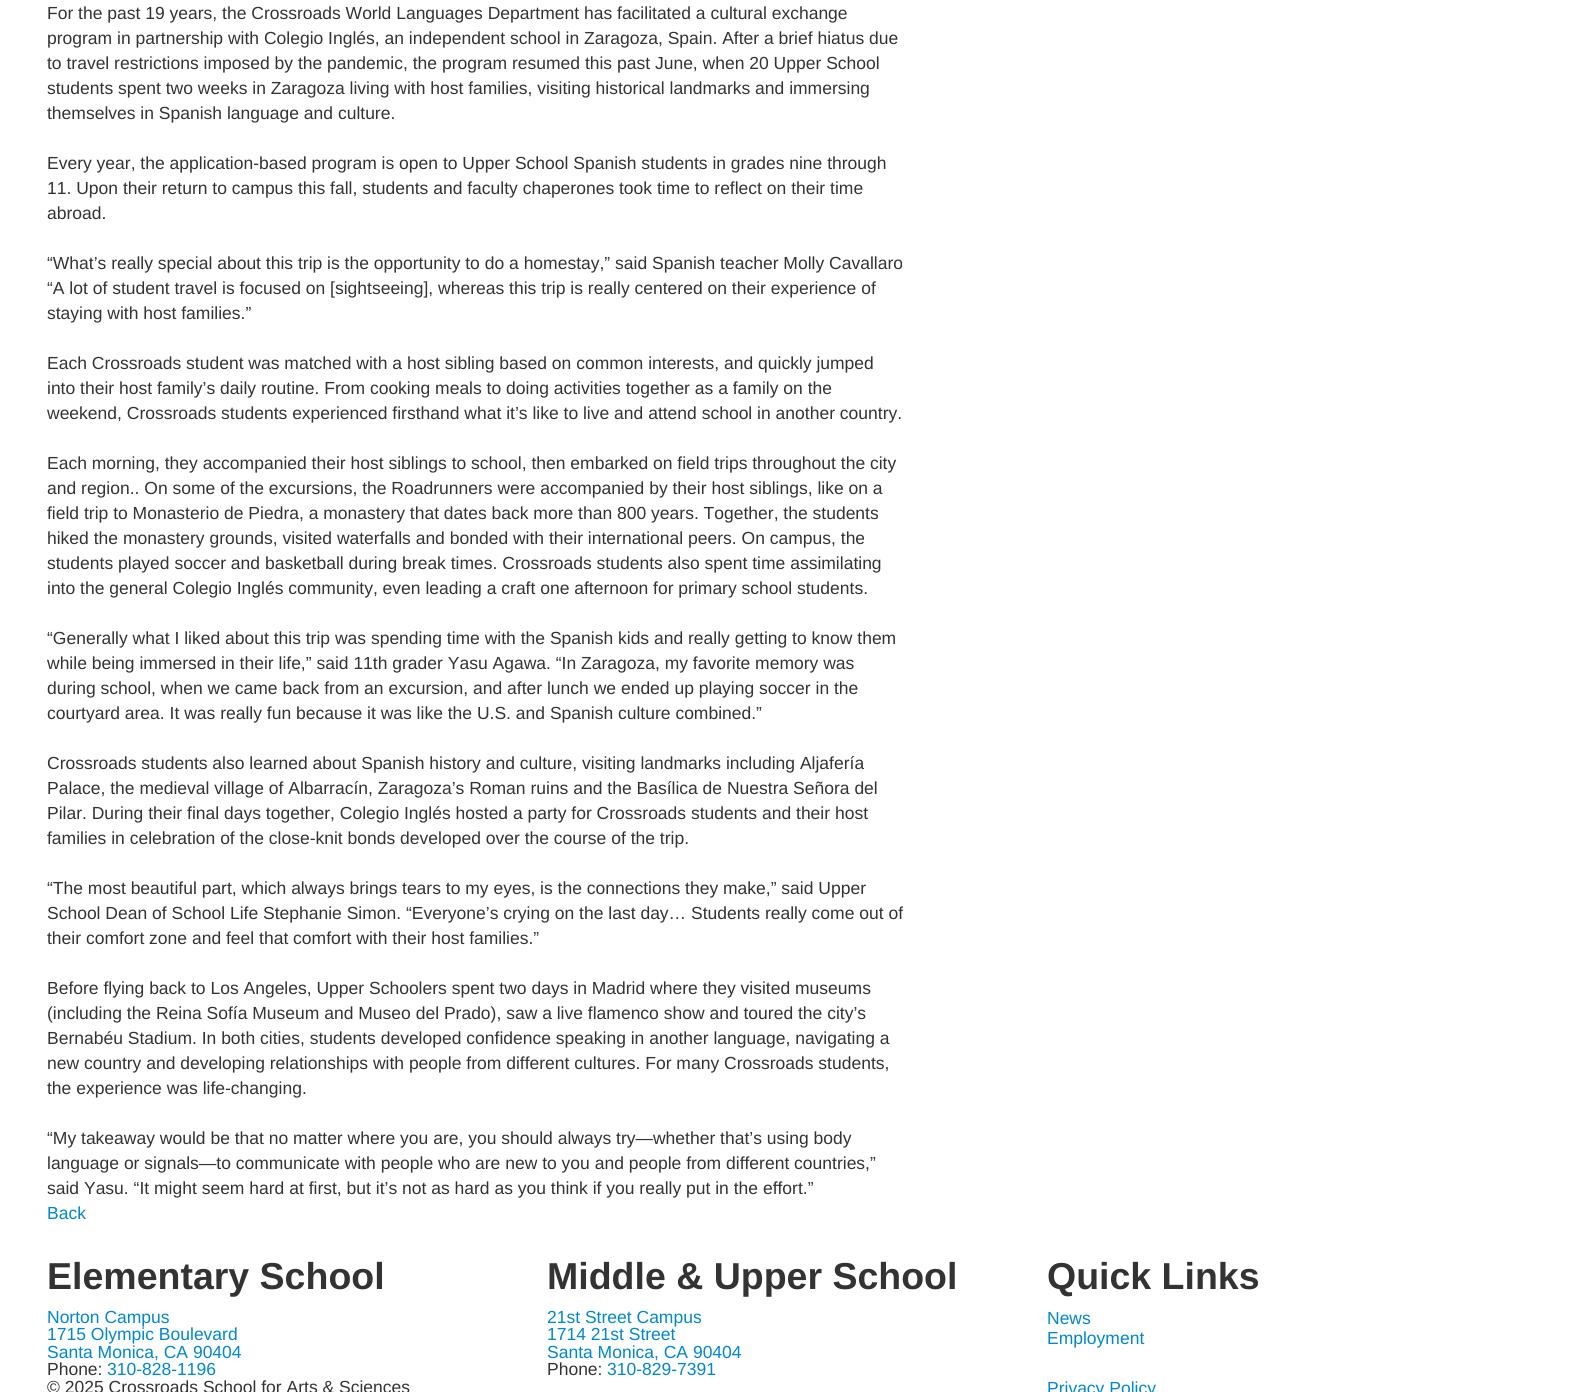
#include <cairo.h>
#include <math.h>
#include <stddef.h>


int main(void) {
    cairo_surface_t *surface = cairo_image_surface_create(CAIRO_FORMAT_RGB24, 1575, 1392);
    cairo_t *cr = cairo_create(surface);
    cairo_font_options_t *options = cairo_font_options_create();
    cairo_font_options_set_hint_metrics(options, CAIRO_HINT_METRICS_OFF);
    cairo_font_options_set_hint_style(options, CAIRO_HINT_STYLE_NONE);
    cairo_set_font_options(cr, options);
    cairo_set_miter_limit(cr, 4);
    cairo_set_source_rgb(cr, 1, 1, 1);
    cairo_paint(cr);
    cairo_select_font_face(cr, "Liberation Sans", CAIRO_FONT_SLANT_NORMAL, CAIRO_FONT_WEIGHT_NORMAL);
    cairo_set_font_size(cr, 17.5);
    cairo_set_source_rgb(cr, 0.2, 0.2, 0.2);
    cairo_move_to(cr, 47, 19);
    cairo_show_text(cr, "For the past 19 years, the Crossroads World Languages Department has facilitated a cultural exchange");
    cairo_move_to(cr, 47, 44);
    cairo_show_text(cr, "program in partnership with Colegio Inglés, an independent school in Zaragoza, Spain. After a brief hiatus due");
    cairo_move_to(cr, 47, 69);
    cairo_show_text(cr, "to travel restrictions imposed by the pandemic, the program resumed this past June, when 20 Upper School");
    cairo_move_to(cr, 47, 94);
    cairo_show_text(cr, "students spent two weeks in Zaragoza living with host families, visiting historical landmarks and immersing");
    cairo_move_to(cr, 47, 119);
    cairo_show_text(cr, "themselves in Spanish language and culture.");
    cairo_move_to(cr, 47, 169);
    cairo_show_text(cr, "Every year, the application-based program is open to Upper School Spanish students in grades nine through");
    cairo_move_to(cr, 47, 194);
    cairo_show_text(cr, "11. Upon their return to campus this fall, students and faculty chaperones took time to reflect on their time");
    cairo_move_to(cr, 47, 219);
    cairo_show_text(cr, "abroad.");
    cairo_move_to(cr, 47, 269);
    cairo_show_text(cr, "“What’s really special about this trip is the opportunity to do a homestay,” said Spanish teacher Molly Cavallaro");
    cairo_move_to(cr, 47, 294);
    cairo_show_text(cr, "“A lot of student travel is focused on [sightseeing], whereas this trip is really centered on their experience of");
    cairo_move_to(cr, 47, 319);
    cairo_show_text(cr, "staying with host families.”");
    cairo_move_to(cr, 47, 369);
    cairo_show_text(cr, "Each Crossroads student was matched with a host sibling based on common interests, and quickly jumped");
    cairo_move_to(cr, 47, 394);
    cairo_show_text(cr, "into their host family’s daily routine. From cooking meals to doing activities together as a family on the");
    cairo_move_to(cr, 47, 419);
    cairo_show_text(cr, "weekend, Crossroads students experienced firsthand what it’s like to live and attend school in another country.");
    cairo_move_to(cr, 47, 469);
    cairo_show_text(cr, "Each morning, they accompanied their host siblings to school, then embarked on field trips throughout the city");
    cairo_move_to(cr, 47, 494);
    cairo_show_text(cr, "and region.. On some of the excursions, the Roadrunners were accompanied by their host siblings, like on a");
    cairo_move_to(cr, 47, 519);
    cairo_show_text(cr, "field trip to Monasterio de Piedra, a monastery that dates back more than 800 years. Together, the students");
    cairo_move_to(cr, 47, 544);
    cairo_show_text(cr, "hiked the monastery grounds, visited waterfalls and bonded with their international peers. On campus, the");
    cairo_move_to(cr, 47, 569);
    cairo_show_text(cr, "students played soccer and basketball during break times. Crossroads students also spent time assimilating");
    cairo_move_to(cr, 47, 594);
    cairo_show_text(cr, "into the general Colegio Inglés community, even leading a craft one afternoon for primary school students.");
    cairo_move_to(cr, 47, 644);
    cairo_show_text(cr, "“Generally what I liked about this trip was spending time with the Spanish kids and really getting to know them");
    cairo_move_to(cr, 47, 669);
    cairo_show_text(cr, "while being immersed in their life,” said 11th grader Yasu Agawa. “In Zaragoza, my favorite memory was");
    cairo_move_to(cr, 47, 694);
    cairo_show_text(cr, "during school, when we came back from an excursion, and after lunch we ended up playing soccer in the");
    cairo_move_to(cr, 47, 719);
    cairo_show_text(cr, "courtyard area. It was really fun because it was like the U.S. and Spanish culture combined.”");
    cairo_move_to(cr, 47, 769);
    cairo_show_text(cr, "Crossroads students also learned about Spanish history and culture, visiting landmarks including Aljafería");
    cairo_move_to(cr, 47, 794);
    cairo_show_text(cr, "Palace, the medieval village of Albarracín, Zaragoza’s Roman ruins and the Basílica de Nuestra Señora del");
    cairo_move_to(cr, 47, 819);
    cairo_show_text(cr, "Pilar. During their final days together, Colegio Inglés hosted a party for Crossroads students and their host");
    cairo_move_to(cr, 47, 844);
    cairo_show_text(cr, "families in celebration of the close-knit bonds developed over the course of the trip.");
    cairo_move_to(cr, 47, 894);
    cairo_show_text(cr, "“The most beautiful part, which always brings tears to my eyes, is the connections they make,” said Upper");
    cairo_move_to(cr, 47, 919);
    cairo_show_text(cr, "School Dean of School Life Stephanie Simon. “Everyone’s crying on the last day… Students really come out of");
    cairo_move_to(cr, 47, 944);
    cairo_show_text(cr, "their comfort zone and feel that comfort with their host families.”");
    cairo_move_to(cr, 47, 994);
    cairo_show_text(cr, "Before flying back to Los Angeles, Upper Schoolers spent two days in Madrid where they visited museums");
    cairo_move_to(cr, 47, 1019);
    cairo_show_text(cr, "(including the Reina Sofía Museum and Museo del Prado), saw a live flamenco show and toured the city’s");
    cairo_move_to(cr, 47, 1044);
    cairo_show_text(cr, "Bernabéu Stadium. In both cities, students developed confidence speaking in another language, navigating a");
    cairo_move_to(cr, 47, 1069);
    cairo_show_text(cr, "new country and developing relationships with people from different cultures. For many Crossroads students,");
    cairo_move_to(cr, 47, 1094);
    cairo_show_text(cr, "the experience was life-changing.");
    cairo_move_to(cr, 47, 1144);
    cairo_show_text(cr, "“My takeaway would be that no matter where you are, you should always try—whether that’s using body");
    cairo_move_to(cr, 47, 1169);
    cairo_show_text(cr, "language or signals—to communicate with people who are new to you and people from different countries,”");
    cairo_move_to(cr, 47, 1194);
    cairo_show_text(cr, "said Yasu. “It might seem hard at first, but it’s not as hard as you think if you really put in the effort.”");
    cairo_set_source_rgb(cr, 0, 0.533, 0.8);
    cairo_move_to(cr, 47, 1219);
    cairo_show_text(cr, "Back");
    cairo_select_font_face(cr, "Liberation Sans", CAIRO_FONT_SLANT_NORMAL, CAIRO_FONT_WEIGHT_BOLD);
    cairo_set_font_size(cr, 37.5);
    cairo_set_source_rgb(cr, 0.2, 0.2, 0.2);
    cairo_move_to(cr, 47, 1289);
    cairo_show_text(cr, "Elementary School");
    cairo_select_font_face(cr, "Liberation Sans", CAIRO_FONT_SLANT_NORMAL, CAIRO_FONT_WEIGHT_NORMAL);
    cairo_set_font_size(cr, 17.5);
    cairo_set_source_rgb(cr, 0, 0.533, 0.8);
    cairo_move_to(cr, 47, 1323);
    cairo_show_text(cr, "Norton Campus");
    cairo_move_to(cr, 47, 1340);
    cairo_show_text(cr, "1715 Olympic Boulevard");
    cairo_move_to(cr, 47, 1358);
    cairo_show_text(cr, "Santa Monica, CA 90404");
    cairo_set_source_rgb(cr, 0.2, 0.2, 0.2);
    cairo_move_to(cr, 47, 1375);
    cairo_show_text(cr, "Phone:");
    cairo_set_source_rgb(cr, 0, 0.533, 0.8);
    cairo_move_to(cr, 107, 1375);
    cairo_show_text(cr, "310-828-1196");
    cairo_select_font_face(cr, "Liberation Sans", CAIRO_FONT_SLANT_NORMAL, CAIRO_FONT_WEIGHT_BOLD);
    cairo_set_font_size(cr, 37.5);
    cairo_set_source_rgb(cr, 0.2, 0.2, 0.2);
    cairo_move_to(cr, 547, 1289);
    cairo_show_text(cr, "Middle & Upper School");
    cairo_select_font_face(cr, "Liberation Sans", CAIRO_FONT_SLANT_NORMAL, CAIRO_FONT_WEIGHT_NORMAL);
    cairo_set_font_size(cr, 17.5);
    cairo_set_source_rgb(cr, 0, 0.533, 0.8);
    cairo_move_to(cr, 547, 1323);
    cairo_show_text(cr, "21st Street Campus");
    cairo_move_to(cr, 547, 1340);
    cairo_show_text(cr, "1714 21st Street");
    cairo_move_to(cr, 547, 1358);
    cairo_show_text(cr, "Santa Monica, CA 90404");
    cairo_set_source_rgb(cr, 0.2, 0.2, 0.2);
    cairo_move_to(cr, 547, 1375);
    cairo_show_text(cr, "Phone:");
    cairo_set_source_rgb(cr, 0, 0.533, 0.8);
    cairo_move_to(cr, 607, 1375);
    cairo_show_text(cr, "310-829-7391");
    cairo_select_font_face(cr, "Liberation Sans", CAIRO_FONT_SLANT_NORMAL, CAIRO_FONT_WEIGHT_BOLD);
    cairo_set_font_size(cr, 37.5);
    cairo_set_source_rgb(cr, 0.2, 0.2, 0.2);
    cairo_move_to(cr, 1047, 1289);
    cairo_show_text(cr, "Quick Links");
    cairo_select_font_face(cr, "Liberation Sans", CAIRO_FONT_SLANT_NORMAL, CAIRO_FONT_WEIGHT_NORMAL);
    cairo_set_font_size(cr, 17.5);
    cairo_set_source_rgb(cr, 0, 0.533, 0.8);
    cairo_move_to(cr, 1047, 1324);
    cairo_show_text(cr, "News");
    cairo_move_to(cr, 1047, 1344);
    cairo_show_text(cr, "Employment");
    cairo_set_source_rgb(cr, 0.2, 0.2, 0.2);
    cairo_move_to(cr, 47, 1393);
    cairo_show_text(cr, "© 2025 Crossroads School for Arts & Sciences");
    cairo_set_source_rgb(cr, 0, 0.533, 0.8);
    cairo_move_to(cr, 1047, 1394);
    cairo_show_text(cr, "Privacy Policy");
    cairo_surface_write_to_png(surface, "page.png");
    cairo_font_options_destroy(options);
    cairo_destroy(cr);
    cairo_surface_destroy(surface);
    return 0;
}
